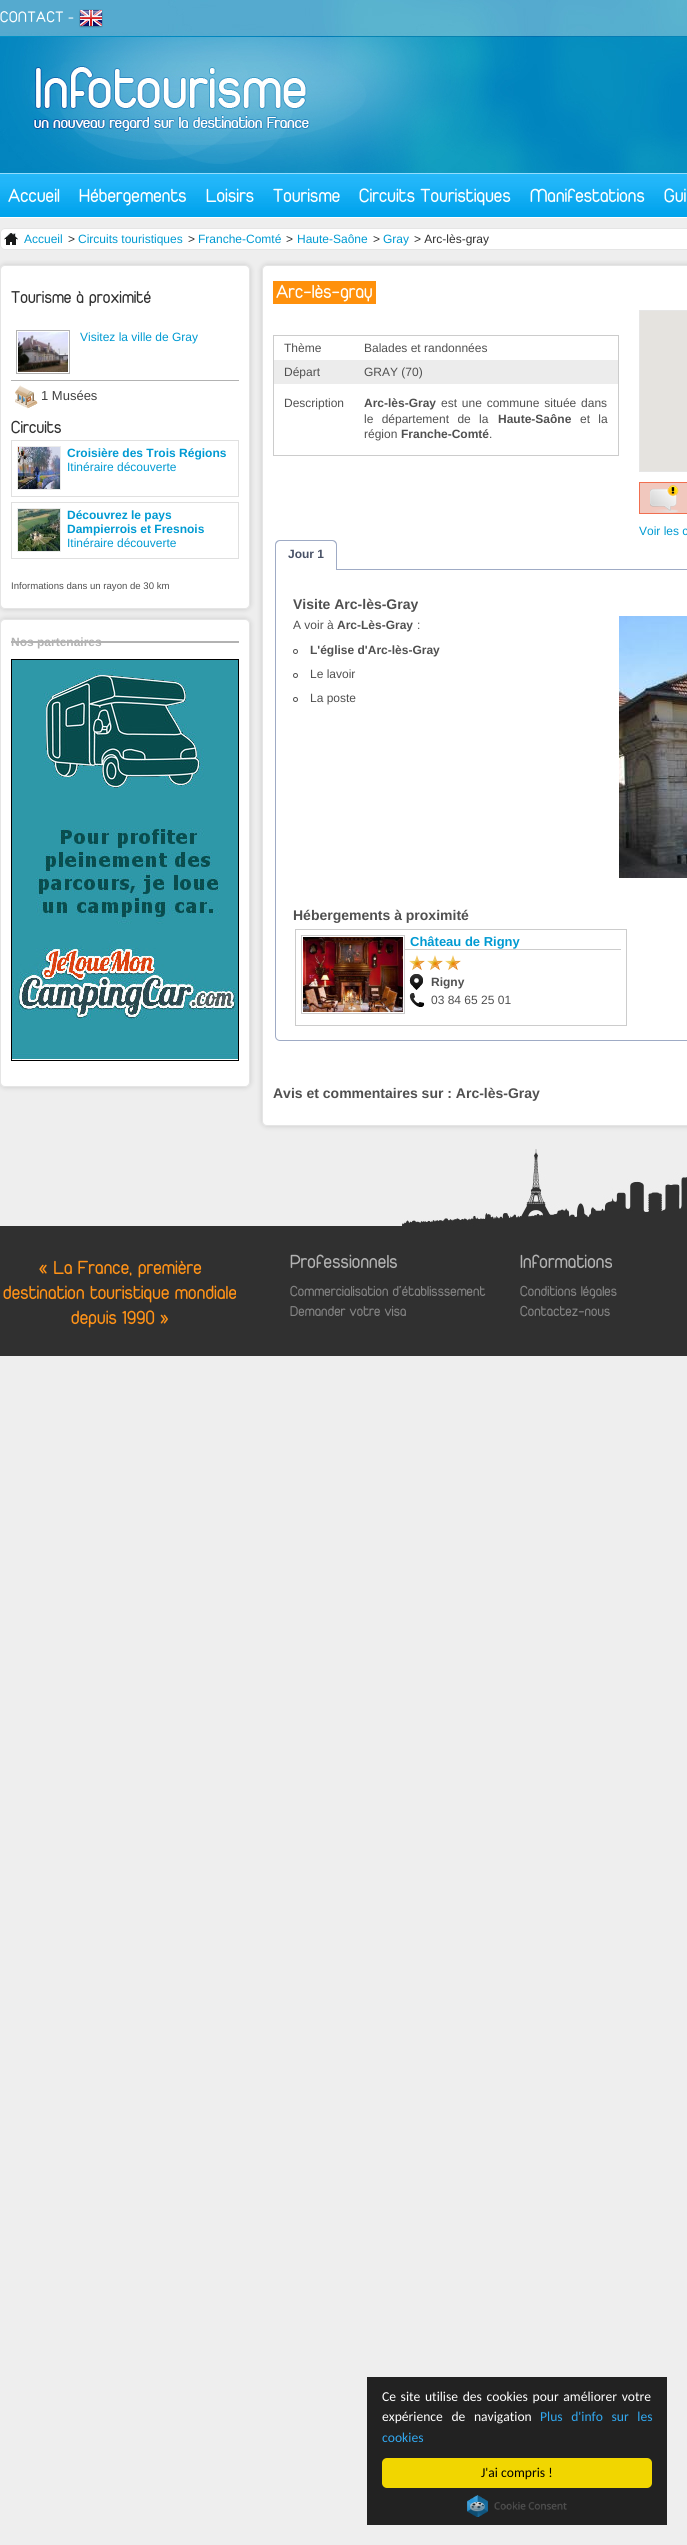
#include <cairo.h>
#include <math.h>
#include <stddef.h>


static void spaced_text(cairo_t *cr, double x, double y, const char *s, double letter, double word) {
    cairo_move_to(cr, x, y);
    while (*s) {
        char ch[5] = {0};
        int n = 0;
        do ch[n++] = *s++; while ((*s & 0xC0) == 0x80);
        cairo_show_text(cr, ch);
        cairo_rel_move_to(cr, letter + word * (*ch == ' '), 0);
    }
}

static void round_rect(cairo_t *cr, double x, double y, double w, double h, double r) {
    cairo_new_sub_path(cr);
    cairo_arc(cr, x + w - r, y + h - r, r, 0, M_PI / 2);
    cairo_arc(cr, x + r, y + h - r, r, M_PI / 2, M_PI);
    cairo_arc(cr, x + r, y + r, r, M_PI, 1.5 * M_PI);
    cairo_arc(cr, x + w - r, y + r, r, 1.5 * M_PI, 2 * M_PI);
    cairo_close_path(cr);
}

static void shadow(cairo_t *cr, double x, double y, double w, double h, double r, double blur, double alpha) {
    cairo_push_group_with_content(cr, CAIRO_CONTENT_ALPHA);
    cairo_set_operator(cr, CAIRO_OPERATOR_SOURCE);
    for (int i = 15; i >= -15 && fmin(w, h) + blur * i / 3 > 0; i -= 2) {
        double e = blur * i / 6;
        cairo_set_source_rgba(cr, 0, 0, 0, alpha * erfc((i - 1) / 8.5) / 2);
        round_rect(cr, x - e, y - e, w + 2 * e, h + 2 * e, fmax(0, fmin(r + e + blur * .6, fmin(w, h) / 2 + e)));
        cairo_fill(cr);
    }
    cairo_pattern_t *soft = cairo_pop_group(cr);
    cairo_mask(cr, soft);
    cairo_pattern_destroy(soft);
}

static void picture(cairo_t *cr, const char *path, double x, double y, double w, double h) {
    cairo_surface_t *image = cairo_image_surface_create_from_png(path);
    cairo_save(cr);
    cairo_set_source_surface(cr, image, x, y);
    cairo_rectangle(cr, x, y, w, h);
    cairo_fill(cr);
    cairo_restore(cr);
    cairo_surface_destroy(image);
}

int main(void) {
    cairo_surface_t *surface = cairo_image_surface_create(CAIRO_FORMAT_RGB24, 687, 2545);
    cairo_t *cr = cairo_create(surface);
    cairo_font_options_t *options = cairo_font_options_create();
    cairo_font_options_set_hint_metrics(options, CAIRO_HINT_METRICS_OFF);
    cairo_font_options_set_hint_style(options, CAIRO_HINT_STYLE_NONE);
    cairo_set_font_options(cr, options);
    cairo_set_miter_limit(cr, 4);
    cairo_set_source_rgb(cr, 0.933, 0.933, 0.933);
    cairo_paint(cr);
    picture(cr, "img1.png", 0, 173, 687, 45);
    picture(cr, "img2.png", 0, 0, 687, 173);
    cairo_select_font_face(cr, "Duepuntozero", CAIRO_FONT_SLANT_NORMAL, CAIRO_FONT_WEIGHT_NORMAL);
    cairo_set_font_size(cr, 16);
    cairo_set_source_rgb(cr, 1, 1, 1);
    spaced_text(cr, 0, 22, "CONTACT", 0.5, 0);
    cairo_set_font_size(cr, 14);
    spaced_text(cr, 68, 22, "-", 0.5, 0);
    picture(cr, "img3.png", 79, 9, 24, 19);
    picture(cr, "img4.png", 86, 88, 133, 50);
    cairo_set_font_size(cr, 20);
    cairo_move_to(cr, 8, 202);
    cairo_show_text(cr, "Accueil");
    cairo_move_to(cr, 79, 202);
    cairo_show_text(cr, "Hébergements");
    cairo_move_to(cr, 206, 202);
    cairo_show_text(cr, "Loisirs");
    cairo_move_to(cr, 273, 202);
    cairo_show_text(cr, "Tourisme");
    cairo_move_to(cr, 359, 202);
    cairo_show_text(cr, "Circuits Touristiques");
    cairo_move_to(cr, 530, 202);
    cairo_show_text(cr, "Manifestations");
    cairo_move_to(cr, 664, 202);
    cairo_show_text(cr, "Gui");
    round_rect(cr, 0, 228, 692, 22, 5);
    cairo_fill(cr);
    round_rect(cr, 0.5, 228.5, 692, 21, 4.5);
    cairo_set_source_rgba(cr, 0.741, 0.741, 0.741, 0.39);
    cairo_set_line_width(cr, 1);
    cairo_stroke(cr);
    picture(cr, "img5.png", 4, 233, 14, 12);
    cairo_select_font_face(cr, "Liberation Sans", CAIRO_FONT_SLANT_NORMAL, CAIRO_FONT_WEIGHT_NORMAL);
    cairo_set_font_size(cr, 12);
    cairo_set_source_rgb(cr, 0, 0.604, 0.824);
    cairo_move_to(cr, 24, 243);
    cairo_show_text(cr, "Accueil");
    cairo_set_source_rgb(cr, 0.188, 0.188, 0.188);
    cairo_move_to(cr, 68, 243);
    cairo_show_text(cr, ">");
    cairo_set_source_rgb(cr, 0, 0.604, 0.824);
    cairo_move_to(cr, 78, 243);
    cairo_show_text(cr, "Circuits touristiques");
    cairo_set_source_rgb(cr, 0.188, 0.188, 0.188);
    cairo_move_to(cr, 188, 243);
    cairo_show_text(cr, ">");
    cairo_set_source_rgb(cr, 0, 0.604, 0.824);
    cairo_move_to(cr, 198, 243);
    cairo_show_text(cr, "Franche-Comté");
    cairo_set_source_rgb(cr, 0.188, 0.188, 0.188);
    cairo_move_to(cr, 286, 243);
    cairo_show_text(cr, ">");
    cairo_set_source_rgb(cr, 0, 0.604, 0.824);
    cairo_move_to(cr, 297, 243);
    cairo_show_text(cr, "Haute-Saône");
    cairo_set_source_rgb(cr, 0.188, 0.188, 0.188);
    cairo_move_to(cr, 373, 243);
    cairo_show_text(cr, ">");
    cairo_set_source_rgb(cr, 0, 0.604, 0.824);
    cairo_move_to(cr, 383, 243);
    cairo_show_text(cr, "Gray");
    cairo_set_source_rgb(cr, 0.188, 0.188, 0.188);
    cairo_move_to(cr, 414, 243);
    cairo_show_text(cr, "> Arc-lès-gray");
    cairo_set_source_rgb(cr, 0, 0, 0);
    shadow(cr, 0, 265, 250, 344, 5, 3, 0.16);
    cairo_set_source_rgb(cr, 1, 1, 1);
    round_rect(cr, 0, 265, 250, 344, 5);
    cairo_fill(cr);
    round_rect(cr, 0.5, 265.5, 249, 343, 4.5);
    cairo_set_source_rgba(cr, 0.741, 0.741, 0.741, 0.39);
    cairo_stroke(cr);
    cairo_select_font_face(cr, "Duepuntozero", CAIRO_FONT_SLANT_NORMAL, CAIRO_FONT_WEIGHT_NORMAL);
    cairo_set_font_size(cr, 18);
    cairo_set_source_rgb(cr, 0.188, 0.188, 0.188);
    cairo_move_to(cr, 11, 303);
    cairo_show_text(cr, "Tourisme à proximité");
    cairo_set_source_rgb(cr, 0.698, 0.698, 0.698);
    cairo_rectangle(cr, 11, 380, 228, 1);
    cairo_fill(cr);
    cairo_rectangle(cr, 16.5, 330.5, 53, 43);
    cairo_stroke(cr);
    picture(cr, "img6.png", 18, 332, 50, 40);
    cairo_select_font_face(cr, "Liberation Sans", CAIRO_FONT_SLANT_NORMAL, CAIRO_FONT_WEIGHT_NORMAL);
    cairo_set_font_size(cr, 12);
    cairo_set_source_rgb(cr, 0, 0.604, 0.824);
    cairo_move_to(cr, 80, 341);
    cairo_show_text(cr, "Visitez la ville de Gray");
    picture(cr, "img7.png", 15, 385, 23, 24);
    cairo_set_font_size(cr, 13);
    cairo_set_source_rgb(cr, 0.251, 0.251, 0.251);
    cairo_move_to(cr, 41, 400);
    cairo_show_text(cr, "1 Musées");
    cairo_select_font_face(cr, "Duepuntozero", CAIRO_FONT_SLANT_NORMAL, CAIRO_FONT_WEIGHT_NORMAL);
    cairo_set_font_size(cr, 18);
    cairo_set_source_rgb(cr, 0.188, 0.188, 0.188);
    cairo_move_to(cr, 11, 433);
    cairo_show_text(cr, "Circuits");
    cairo_rectangle(cr, 11.5, 440.5, 227, 56);
    cairo_set_source_rgb(cr, 0.878, 0.878, 0.878);
    cairo_stroke(cr);
    cairo_rectangle(cr, 17.5, 446.5, 43, 43);
    cairo_set_source_rgb(cr, 0.922, 0.922, 0.922);
    cairo_stroke(cr);
    picture(cr, "img8.png", 18, 447, 42, 42);
    cairo_select_font_face(cr, "Liberation Sans", CAIRO_FONT_SLANT_NORMAL, CAIRO_FONT_WEIGHT_BOLD);
    cairo_set_font_size(cr, 12);
    cairo_set_source_rgb(cr, 0, 0.604, 0.824);
    cairo_move_to(cr, 67, 457);
    cairo_show_text(cr, "Croisière des Trois Régions");
    cairo_select_font_face(cr, "Liberation Sans", CAIRO_FONT_SLANT_NORMAL, CAIRO_FONT_WEIGHT_NORMAL);
    cairo_move_to(cr, 67, 471);
    cairo_show_text(cr, "Itinéraire découverte");
    cairo_rectangle(cr, 11.5, 502.5, 227, 56);
    cairo_set_source_rgb(cr, 0.878, 0.878, 0.878);
    cairo_stroke(cr);
    cairo_rectangle(cr, 17.5, 508.5, 43, 43);
    cairo_set_source_rgb(cr, 0.922, 0.922, 0.922);
    cairo_stroke(cr);
    picture(cr, "img9.png", 18, 509, 42, 42);
    cairo_select_font_face(cr, "Liberation Sans", CAIRO_FONT_SLANT_NORMAL, CAIRO_FONT_WEIGHT_BOLD);
    cairo_set_source_rgb(cr, 0, 0.604, 0.824);
    cairo_move_to(cr, 67, 519);
    cairo_show_text(cr, "Découvrez le pays");
    cairo_move_to(cr, 67, 533);
    cairo_show_text(cr, "Dampierrois et Fresnois");
    cairo_select_font_face(cr, "Liberation Sans", CAIRO_FONT_SLANT_NORMAL, CAIRO_FONT_WEIGHT_NORMAL);
    cairo_move_to(cr, 67, 547);
    cairo_show_text(cr, "Itinéraire découverte");
    cairo_set_font_size(cr, 9.6);
    cairo_set_source_rgb(cr, 0.314, 0.314, 0.314);
    cairo_move_to(cr, 11, 589);
    cairo_show_text(cr, "Informations dans un rayon de 30 km");
    cairo_set_source_rgb(cr, 0, 0, 0);
    shadow(cr, 0, 619, 250, 468, 5, 3, 0.16);
    cairo_set_source_rgb(cr, 1, 1, 1);
    round_rect(cr, 0, 619, 250, 468, 5);
    cairo_fill(cr);
    round_rect(cr, 0.5, 619.5, 249, 467, 4.5);
    cairo_set_source_rgba(cr, 0.741, 0.741, 0.741, 0.39);
    cairo_stroke(cr);
    cairo_select_font_face(cr, "Liberation Sans", CAIRO_FONT_SLANT_NORMAL, CAIRO_FONT_WEIGHT_BOLD);
    cairo_set_font_size(cr, 12);
    cairo_set_source_rgb(cr, 0.698, 0.698, 0.698);
    cairo_move_to(cr, 11, 646);
    cairo_show_text(cr, "Nos partenaires");
    cairo_rectangle(cr, 11, 641, 228, 2);
    cairo_fill(cr);
    cairo_rectangle(cr, 11.5, 659.5, 227, 401);
    cairo_set_source_rgb(cr, 0, 0, 0);
    cairo_stroke(cr);
    picture(cr, "img10.png", 12, 660, 226, 399);
    cairo_set_source_rgb(cr, 0, 0, 0);
    shadow(cr, 262, 265, 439, 861, 5, 3, 0.16);
    cairo_set_source_rgb(cr, 1, 1, 1);
    round_rect(cr, 262, 265, 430, 861, 5);
    cairo_fill(cr);
    round_rect(cr, 262.5, 265.5, 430, 860, 4.5);
    cairo_set_source_rgba(cr, 0.741, 0.741, 0.741, 0.39);
    cairo_stroke(cr);
    cairo_set_source_rgb(cr, 1, 0.569, 0.047);
    cairo_rectangle(cr, 273, 281, 103, 23);
    cairo_fill(cr);
    cairo_select_font_face(cr, "Duepuntozero", CAIRO_FONT_SLANT_NORMAL, CAIRO_FONT_WEIGHT_NORMAL);
    cairo_set_font_size(cr, 20);
    cairo_set_source_rgb(cr, 1, 1, 1);
    cairo_move_to(cr, 276, 298);
    cairo_show_text(cr, "Arc-lès-gray");
    cairo_rectangle(cr, 273.5, 335.5, 345, 120);
    cairo_set_source_rgb(cr, 0.8, 0.8, 0.8);
    cairo_stroke(cr);
    cairo_select_font_face(cr, "Liberation Sans", CAIRO_FONT_SLANT_NORMAL, CAIRO_FONT_WEIGHT_NORMAL);
    cairo_set_font_size(cr, 12);
    cairo_set_source_rgb(cr, 0.314, 0.314, 0.314);
    cairo_move_to(cr, 284, 352);
    cairo_show_text(cr, "Thème");
    cairo_move_to(cr, 364, 352);
    cairo_show_text(cr, "Balades et randonnées");
    cairo_set_source_rgb(cr, 0.922, 0.922, 0.922);
    cairo_rectangle(cr, 274, 360, 344, 24);
    cairo_fill(cr);
    cairo_set_source_rgb(cr, 0.314, 0.314, 0.314);
    cairo_move_to(cr, 284, 376);
    cairo_show_text(cr, "Départ");
    cairo_move_to(cr, 364, 376);
    cairo_show_text(cr, "GRAY (70)");
    cairo_move_to(cr, 284, 407);
    cairo_show_text(cr, "Description");
    cairo_select_font_face(cr, "Liberation Sans", CAIRO_FONT_SLANT_NORMAL, CAIRO_FONT_WEIGHT_BOLD);
    cairo_move_to(cr, 364, 407);
    cairo_show_text(cr, "Arc-lès-Gray");
    cairo_select_font_face(cr, "Liberation Sans", CAIRO_FONT_SLANT_NORMAL, CAIRO_FONT_WEIGHT_NORMAL);
    spaced_text(cr, 441, 407, "est une commune située dans", 0, 1.5);
    spaced_text(cr, 364, 423, "le département de la", 0, 5);
    cairo_select_font_face(cr, "Liberation Sans", CAIRO_FONT_SLANT_NORMAL, CAIRO_FONT_WEIGHT_BOLD);
    cairo_move_to(cr, 498, 423);
    cairo_show_text(cr, "Haute-Saône");
    cairo_select_font_face(cr, "Liberation Sans", CAIRO_FONT_SLANT_NORMAL, CAIRO_FONT_WEIGHT_NORMAL);
    spaced_text(cr, 580, 423, "et la", 0, 5);
    cairo_move_to(cr, 364, 438);
    cairo_show_text(cr, "région");
    cairo_select_font_face(cr, "Liberation Sans", CAIRO_FONT_SLANT_NORMAL, CAIRO_FONT_WEIGHT_BOLD);
    cairo_move_to(cr, 401, 438);
    cairo_show_text(cr, "Franche-Comté");
    cairo_select_font_face(cr, "Liberation Sans", CAIRO_FONT_SLANT_NORMAL, CAIRO_FONT_WEIGHT_NORMAL);
    cairo_move_to(cr, 489, 438);
    cairo_show_text(cr, ".");
    cairo_rectangle(cr, 639.5, 310.5, 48, 161);
    cairo_set_source_rgb(cr, 0.902, 0.902, 0.902);
    cairo_stroke(cr);
    cairo_set_source_rgb(cr, 0.898, 0.89, 0.875);
    cairo_rectangle(cr, 640, 311, 47, 160);
    cairo_fill(cr);
    cairo_set_source_rgb(cr, 0.945, 0.784, 0.745);
    cairo_rectangle(cr, 640, 483, 47, 30);
    cairo_fill(cr);
    picture(cr, "img11.png", 650, 485, 29, 28);
    cairo_rectangle(cr, 639.5, 482.5, 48, 31);
    cairo_set_source_rgb(cr, 0.945, 0.435, 0.314);
    cairo_stroke(cr);
    cairo_set_source_rgb(cr, 0, 0.604, 0.824);
    cairo_move_to(cr, 639, 535);
    cairo_show_text(cr, "Voir les c");
    cairo_new_path(cr);
    cairo_move_to(cr, 275.5, 569.5);
    cairo_line_to(cr, 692.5, 569.5);
    cairo_line_to(cr, 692.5, 1036);
    cairo_curve_to(cr, 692.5, 1038.5, 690.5, 1040.5, 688, 1040.5);
    cairo_line_to(cr, 280, 1040.5);
    cairo_curve_to(cr, 277.5, 1040.5, 275.5, 1038.5, 275.5, 1036);
    cairo_close_path(cr);
    cairo_set_source_rgb(cr, 0.624, 0.671, 0.773);
    cairo_stroke(cr);
    cairo_set_source_rgb(cr, 1, 1, 1);
    cairo_new_path(cr);
    cairo_move_to(cr, 280, 541);
    cairo_line_to(cr, 332, 541);
    cairo_curve_to(cr, 334, 541, 336, 543, 336, 545);
    cairo_line_to(cr, 336, 570);
    cairo_line_to(cr, 276, 570);
    cairo_line_to(cr, 276, 545);
    cairo_curve_to(cr, 276, 543, 278, 541, 280, 541);
    cairo_close_path(cr);
    cairo_fill(cr);
    cairo_set_source_rgb(cr, 0.624, 0.671, 0.773);
    cairo_set_fill_rule(cr, CAIRO_FILL_RULE_EVEN_ODD);
    cairo_new_path(cr);
    cairo_move_to(cr, 280, 540);
    cairo_line_to(cr, 332, 540);
    cairo_curve_to(cr, 335, 540, 337, 542, 337, 545);
    cairo_line_to(cr, 337, 570);
    cairo_line_to(cr, 275, 570);
    cairo_line_to(cr, 275, 545);
    cairo_curve_to(cr, 275, 542, 277, 540, 280, 540);
    cairo_close_path(cr);
    cairo_move_to(cr, 280, 541);
    cairo_line_to(cr, 332, 541);
    cairo_curve_to(cr, 334, 541, 336, 543, 336, 545);
    cairo_line_to(cr, 336, 570);
    cairo_line_to(cr, 276, 570);
    cairo_line_to(cr, 276, 545);
    cairo_curve_to(cr, 276, 543, 278, 541, 280, 541);
    cairo_close_path(cr);
    cairo_fill(cr);
    cairo_select_font_face(cr, "Liberation Sans", CAIRO_FONT_SLANT_NORMAL, CAIRO_FONT_WEIGHT_BOLD);
    cairo_set_source_rgb(cr, 0.282, 0.318, 0.4);
    cairo_move_to(cr, 288, 558);
    cairo_show_text(cr, "Jour 1");
    cairo_set_font_size(cr, 14);
    cairo_set_source_rgb(cr, 0.314, 0.314, 0.314);
    cairo_move_to(cr, 293, 609);
    cairo_show_text(cr, "Visite Arc-lès-Gray");
    cairo_select_font_face(cr, "Liberation Sans", CAIRO_FONT_SLANT_NORMAL, CAIRO_FONT_WEIGHT_NORMAL);
    cairo_set_font_size(cr, 12);
    cairo_move_to(cr, 293, 629);
    cairo_show_text(cr, "A voir à");
    cairo_select_font_face(cr, "Liberation Sans", CAIRO_FONT_SLANT_NORMAL, CAIRO_FONT_WEIGHT_BOLD);
    cairo_move_to(cr, 337, 629);
    cairo_show_text(cr, "Arc-Lès-Gray");
    cairo_select_font_face(cr, "Liberation Sans", CAIRO_FONT_SLANT_NORMAL, CAIRO_FONT_WEIGHT_NORMAL);
    cairo_move_to(cr, 417, 629);
    cairo_show_text(cr, ":");
    cairo_new_path(cr);
    cairo_arc(cr, 295.5, 651.5, 2, 0, 2 * M_PI);
    cairo_stroke(cr);
    cairo_select_font_face(cr, "Liberation Sans", CAIRO_FONT_SLANT_NORMAL, CAIRO_FONT_WEIGHT_BOLD);
    cairo_move_to(cr, 310, 654);
    cairo_show_text(cr, "L'église d'Arc-lès-Gray");
    cairo_new_path(cr);
    cairo_arc(cr, 295.5, 675.5, 2, 0, 2 * M_PI);
    cairo_stroke(cr);
    cairo_select_font_face(cr, "Liberation Sans", CAIRO_FONT_SLANT_NORMAL, CAIRO_FONT_WEIGHT_NORMAL);
    cairo_move_to(cr, 310, 678);
    cairo_show_text(cr, "Le lavoir");
    cairo_new_path(cr);
    cairo_arc(cr, 295.5, 699.5, 2, 0, 2 * M_PI);
    cairo_stroke(cr);
    cairo_move_to(cr, 310, 702);
    cairo_show_text(cr, "La poste");
    picture(cr, "img12.png", 619, 616, 68, 262);
    cairo_select_font_face(cr, "Liberation Sans", CAIRO_FONT_SLANT_NORMAL, CAIRO_FONT_WEIGHT_BOLD);
    cairo_set_font_size(cr, 14);
    cairo_move_to(cr, 293, 920);
    cairo_show_text(cr, "Hébergements à proximité");
    cairo_rectangle(cr, 295.5, 929.5, 331, 96);
    cairo_set_source_rgb(cr, 0.8, 0.8, 0.8);
    cairo_stroke(cr);
    cairo_rectangle(cr, 301.5, 935.5, 103, 78);
    cairo_stroke(cr);
    picture(cr, "img13.png", 303, 937, 100, 75);
    cairo_rectangle(cr, 405, 949, 216, 1);
    cairo_fill(cr);
    cairo_set_font_size(cr, 13);
    cairo_set_source_rgb(cr, 0, 0.604, 0.824);
    cairo_move_to(cr, 410, 946);
    cairo_show_text(cr, "Château de Rigny");
    picture(cr, "img14.png", 409, 955, 52, 16);
    picture(cr, "img15.png", 409, 974, 14, 16);
    cairo_set_font_size(cr, 12);
    cairo_set_source_rgb(cr, 0.314, 0.314, 0.314);
    cairo_move_to(cr, 431, 986);
    cairo_show_text(cr, "Rigny");
    picture(cr, "img16.png", 409, 993, 16, 14);
    cairo_select_font_face(cr, "Liberation Sans", CAIRO_FONT_SLANT_NORMAL, CAIRO_FONT_WEIGHT_NORMAL);
    cairo_move_to(cr, 431, 1004);
    cairo_show_text(cr, "03 84 65 25 01");
    cairo_select_font_face(cr, "Liberation Sans", CAIRO_FONT_SLANT_NORMAL, CAIRO_FONT_WEIGHT_BOLD);
    cairo_set_font_size(cr, 14);
    cairo_move_to(cr, 273, 1098);
    cairo_show_text(cr, "Avis et commentaires sur : Arc-lès-Gray");
    cairo_set_source_rgb(cr, 0.188, 0.188, 0.188);
    cairo_rectangle(cr, 0, 1226, 687, 130);
    cairo_fill(cr);
    picture(cr, "img17.png", 402, 1149, 285, 77);
    cairo_select_font_face(cr, "Duepuntozero", CAIRO_FONT_SLANT_NORMAL, CAIRO_FONT_WEIGHT_NORMAL);
    cairo_set_font_size(cr, 20);
    cairo_set_source_rgb(cr, 1, 0.573, 0.09);
    cairo_move_to(cr, 39, 1274);
    cairo_show_text(cr, "« La France, première");
    cairo_move_to(cr, 3, 1299);
    cairo_show_text(cr, "destination touristique mondiale");
    cairo_move_to(cr, 71, 1324);
    cairo_show_text(cr, "depuis 1990 »");
    cairo_set_source_rgb(cr, 0.698, 0.698, 0.698);
    cairo_move_to(cr, 290, 1268);
    cairo_show_text(cr, "Professionnels");
    cairo_set_font_size(cr, 15);
    cairo_set_source_rgb(cr, 0.518, 0.518, 0.518);
    cairo_move_to(cr, 290, 1296);
    cairo_show_text(cr, "Commercialisation d'établisssement");
    cairo_move_to(cr, 290, 1316);
    cairo_show_text(cr, "Demander votre visa");
    cairo_set_font_size(cr, 20);
    cairo_set_source_rgb(cr, 0.698, 0.698, 0.698);
    cairo_move_to(cr, 520, 1268);
    cairo_show_text(cr, "Informations");
    cairo_set_font_size(cr, 15);
    cairo_set_source_rgb(cr, 0.518, 0.518, 0.518);
    cairo_move_to(cr, 520, 1296);
    cairo_show_text(cr, "Conditions légales");
    cairo_move_to(cr, 520, 1316);
    cairo_show_text(cr, "Contactez-nous");
    cairo_set_source_rgb(cr, 0.133, 0.133, 0.133);
    cairo_rectangle(cr, 367, 2377, 300, 148);
    cairo_fill(cr);
    cairo_select_font_face(cr, "Carlito", CAIRO_FONT_SLANT_NORMAL, CAIRO_FONT_WEIGHT_NORMAL);
    cairo_set_font_size(cr, 13.6);
    cairo_set_source_rgb(cr, 1, 1, 1);
    spaced_text(cr, 382, 2401, "Ce site utilise des cookies pour améliorer votre", 0, 1.5);
    spaced_text(cr, 382, 2421, "expérience de navigation", 0, 5.5);
    cairo_set_source_rgb(cr, 0.192, 0.659, 0.941);
    spaced_text(cr, 540, 2421, "Plus d'info sur les", 0, 5.5);
    cairo_move_to(cr, 382, 2442);
    cairo_show_text(cr, "cookies");
    cairo_set_source_rgb(cr, 0.945, 0.839, 0);
    round_rect(cr, 382, 2458, 270, 30, 5);
    cairo_fill(cr);
    cairo_set_source_rgb(cr, 0, 0, 0);
    cairo_move_to(cr, 481, 2477);
    cairo_show_text(cr, "J'ai compris !");
    picture(cr, "img18.png", 467, 2495, 100, 22);
    cairo_surface_write_to_png(surface, "page.png");
    cairo_font_options_destroy(options);
    cairo_destroy(cr);
    cairo_surface_destroy(surface);
    return 0;
}
